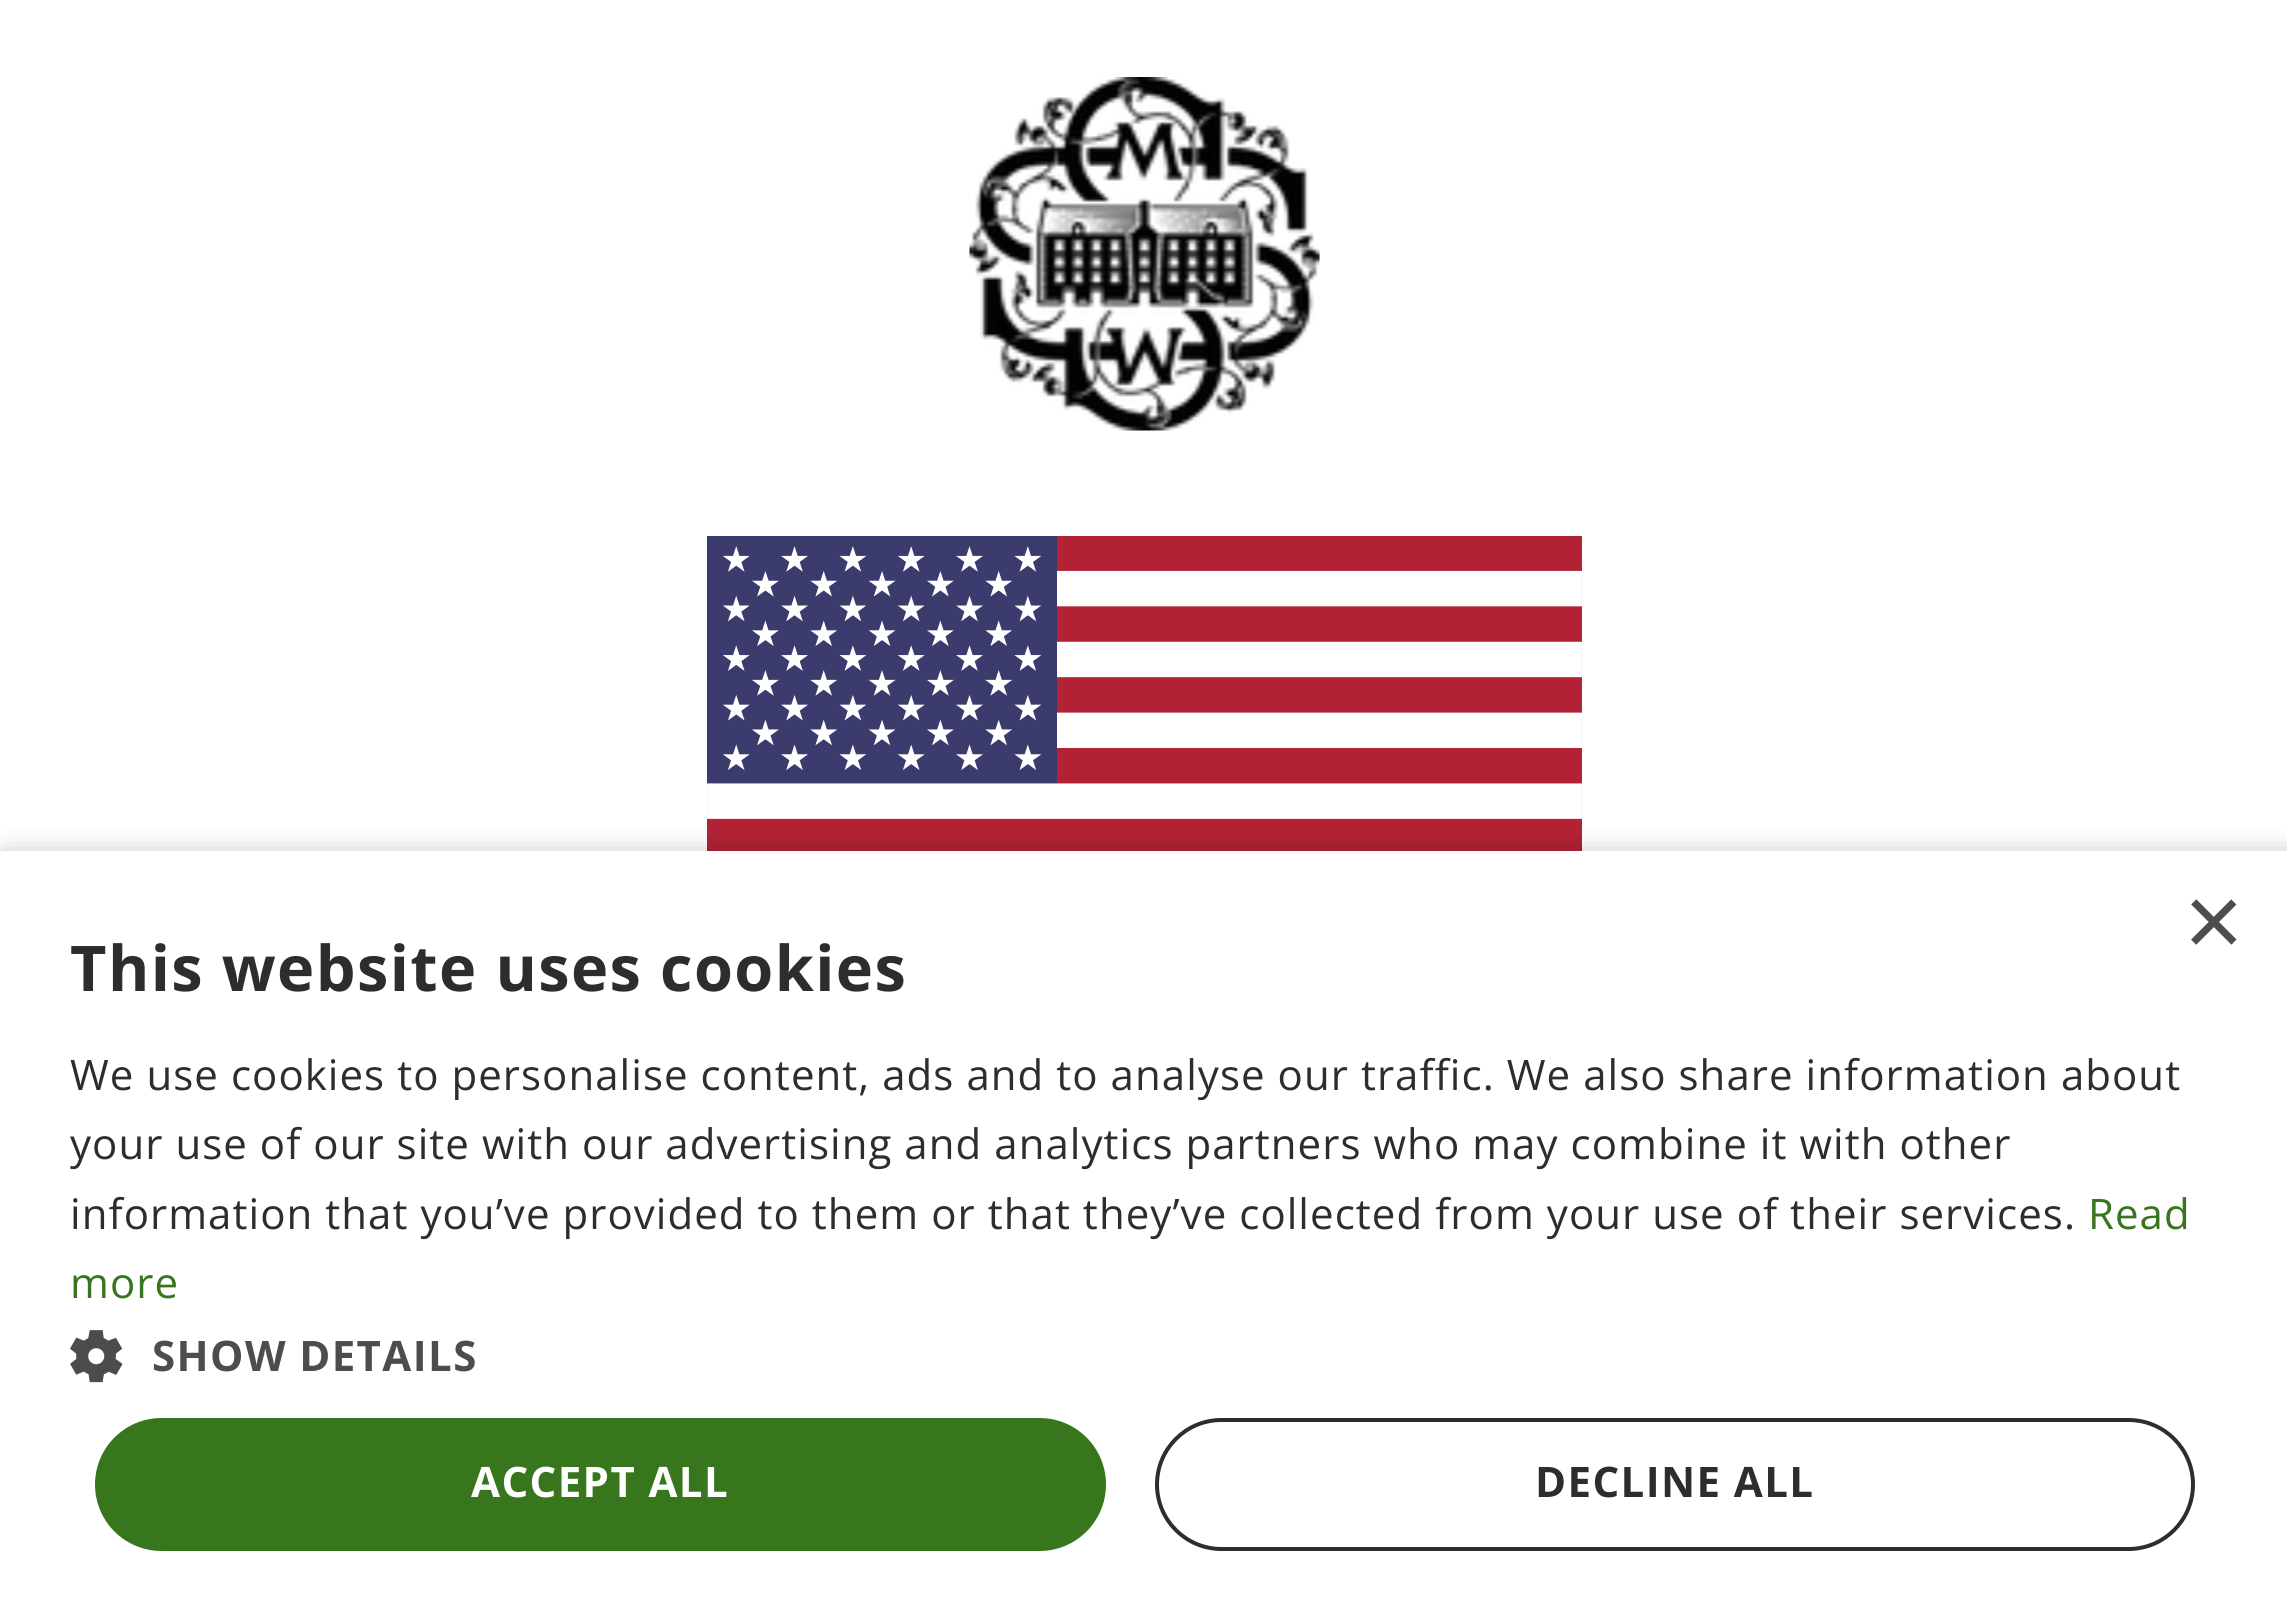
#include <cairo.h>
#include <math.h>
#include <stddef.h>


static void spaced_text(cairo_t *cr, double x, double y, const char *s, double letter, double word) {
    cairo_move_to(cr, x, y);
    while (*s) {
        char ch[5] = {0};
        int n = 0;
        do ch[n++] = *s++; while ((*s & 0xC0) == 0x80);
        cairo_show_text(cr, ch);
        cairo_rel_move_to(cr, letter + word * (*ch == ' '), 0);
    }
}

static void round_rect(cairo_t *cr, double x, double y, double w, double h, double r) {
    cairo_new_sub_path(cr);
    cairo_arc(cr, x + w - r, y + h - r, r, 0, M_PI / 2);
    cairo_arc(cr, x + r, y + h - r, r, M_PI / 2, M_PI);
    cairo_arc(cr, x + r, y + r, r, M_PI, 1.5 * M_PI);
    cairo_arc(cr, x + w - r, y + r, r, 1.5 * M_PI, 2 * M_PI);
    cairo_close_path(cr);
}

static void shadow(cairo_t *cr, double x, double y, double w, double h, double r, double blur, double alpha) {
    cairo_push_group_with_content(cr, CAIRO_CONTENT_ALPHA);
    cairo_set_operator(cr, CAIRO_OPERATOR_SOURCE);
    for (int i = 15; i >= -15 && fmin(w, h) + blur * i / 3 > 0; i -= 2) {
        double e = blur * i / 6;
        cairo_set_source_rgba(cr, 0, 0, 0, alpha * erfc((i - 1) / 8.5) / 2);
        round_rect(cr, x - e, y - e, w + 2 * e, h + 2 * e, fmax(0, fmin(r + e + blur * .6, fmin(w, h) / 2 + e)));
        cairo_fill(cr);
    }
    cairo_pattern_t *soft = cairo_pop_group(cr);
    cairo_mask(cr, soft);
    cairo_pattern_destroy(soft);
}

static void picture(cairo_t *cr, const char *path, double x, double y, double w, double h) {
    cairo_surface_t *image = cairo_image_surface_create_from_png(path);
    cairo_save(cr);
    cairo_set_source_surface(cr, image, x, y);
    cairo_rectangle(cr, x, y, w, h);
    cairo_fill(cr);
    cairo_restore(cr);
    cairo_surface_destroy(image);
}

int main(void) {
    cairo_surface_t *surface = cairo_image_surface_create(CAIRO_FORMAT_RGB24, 2287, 1619);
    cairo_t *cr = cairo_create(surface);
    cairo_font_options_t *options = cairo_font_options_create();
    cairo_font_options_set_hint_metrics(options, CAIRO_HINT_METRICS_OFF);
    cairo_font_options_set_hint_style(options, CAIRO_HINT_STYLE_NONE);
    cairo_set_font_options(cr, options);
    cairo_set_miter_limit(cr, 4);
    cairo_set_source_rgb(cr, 1, 1, 1);
    cairo_paint(cr);
    picture(cr, "img1.png", 969, 77, 351, 354);
    picture(cr, "img2.png", 707, 536, 875, 315);
    cairo_set_source_rgb(cr, 0, 0, 0);
    shadow(cr, 4, 858, 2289, 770, 0, 14, 0.35);
    cairo_set_source_rgb(cr, 1, 1, 1);
    cairo_rectangle(cr, 0, 851, 2287, 768);
    cairo_fill(cr);
    cairo_select_font_face(cr, "Liberation Sans", CAIRO_FONT_SLANT_NORMAL, CAIRO_FONT_WEIGHT_NORMAL);
    cairo_set_font_size(cr, 102);
    cairo_set_source_rgb(cr, 0.302, 0.302, 0.302);
    cairo_move_to(cr, 2184, 956);
    cairo_show_text(cr, "×");
    cairo_select_font_face(cr, "Open Sans", CAIRO_FONT_SLANT_NORMAL, CAIRO_FONT_WEIGHT_BOLD);
    cairo_set_font_size(cr, 63);
    cairo_set_source_rgb(cr, 0.176, 0.176, 0.176);
    spaced_text(cr, 70, 991, "This website uses cookies", 1.4, 0);
    cairo_select_font_face(cr, "Open Sans", CAIRO_FONT_SLANT_NORMAL, CAIRO_FONT_WEIGHT_NORMAL);
    cairo_set_font_size(cr, 42);
    spaced_text(cr, 70, 1090, "We use cookies to personalise content, ads and to analyse our traffic. We also share information about", 1.05, 0);
    spaced_text(cr, 70, 1159, "your use of our site with our advertising and analytics partners who may combine it with other", 1.05, 0);
    spaced_text(cr, 70, 1229, "information that you’ve provided to them or that they’ve collected from your use of their services.", 1.05, 0);
    cairo_set_source_rgb(cr, 0.22, 0.463, 0.114);
    spaced_text(cr, 2088, 1229, "Read", 1.05, 0);
    spaced_text(cr, 70, 1298, "more", 1.05, 0);
    picture(cr, "img3.png", 70, 1330, 53, 53);
    cairo_select_font_face(cr, "Open Sans", CAIRO_FONT_SLANT_NORMAL, CAIRO_FONT_WEIGHT_BOLD);
    cairo_set_source_rgb(cr, 0.302, 0.302, 0.302);
    spaced_text(cr, 152, 1371, "SHOW DETAILS", 1.4, 0);
    cairo_set_source_rgb(cr, 0.22, 0.463, 0.114);
    round_rect(cr, 95, 1418, 1011, 133, 66.5);
    cairo_fill(cr);
    cairo_set_source_rgb(cr, 1, 1, 1);
    spaced_text(cr, 471, 1497, "ACCEPT ALL", 1.4, 0);
    round_rect(cr, 1157, 1420, 1036, 129, 64.5);
    cairo_set_source_rgb(cr, 0.176, 0.176, 0.176);
    cairo_set_line_width(cr, 4);
    cairo_stroke(cr);
    spaced_text(cr, 1535, 1497, "DECLINE ALL", 1.4, 0);
    cairo_surface_write_to_png(surface, "page.png");
    cairo_font_options_destroy(options);
    cairo_destroy(cr);
    cairo_surface_destroy(surface);
    return 0;
}
